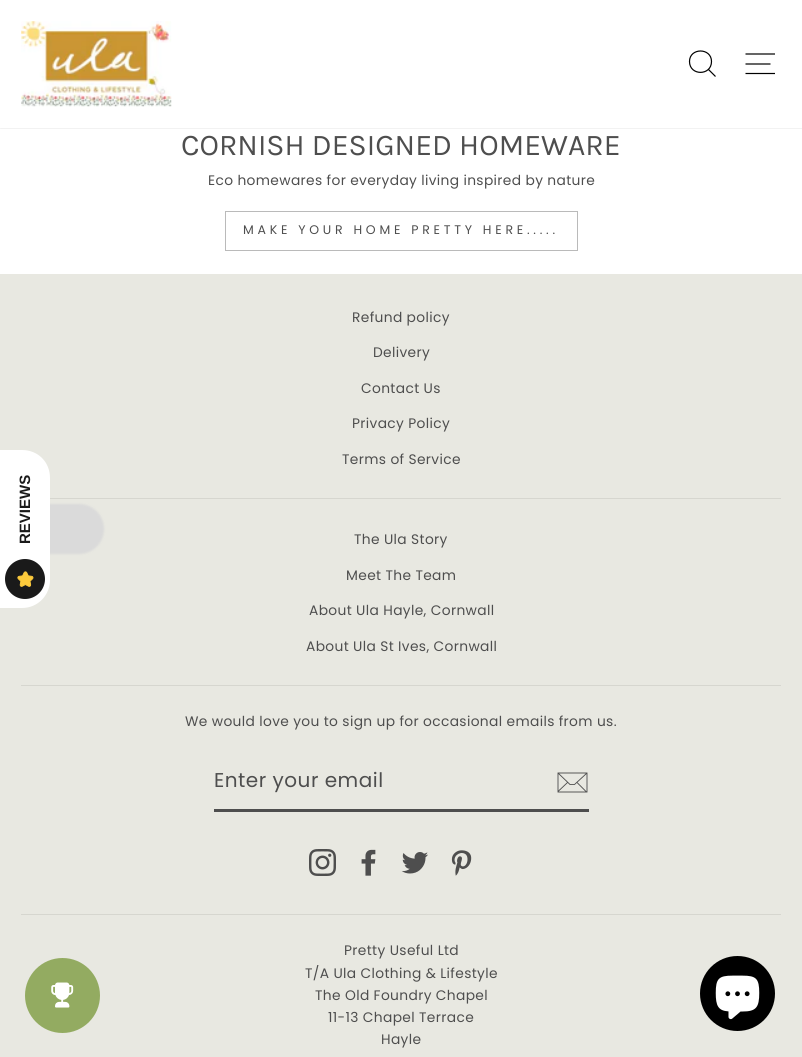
#include <cairo.h>
#include <math.h>
#include <stddef.h>


static void spaced_text(cairo_t *cr, double x, double y, const char *s, double letter, double word) {
    cairo_move_to(cr, x, y);
    while (*s) {
        char ch[5] = {0};
        int n = 0;
        do ch[n++] = *s++; while ((*s & 0xC0) == 0x80);
        cairo_show_text(cr, ch);
        cairo_rel_move_to(cr, letter + word * (*ch == ' '), 0);
    }
}

static void round_rect(cairo_t *cr, double x, double y, double w, double h, double r) {
    cairo_new_sub_path(cr);
    cairo_arc(cr, x + w - r, y + h - r, r, 0, M_PI / 2);
    cairo_arc(cr, x + r, y + h - r, r, M_PI / 2, M_PI);
    cairo_arc(cr, x + r, y + r, r, M_PI, 1.5 * M_PI);
    cairo_arc(cr, x + w - r, y + r, r, 1.5 * M_PI, 2 * M_PI);
    cairo_close_path(cr);
}

static void shadow(cairo_t *cr, double x, double y, double w, double h, double r, double blur, double alpha) {
    cairo_push_group_with_content(cr, CAIRO_CONTENT_ALPHA);
    cairo_set_operator(cr, CAIRO_OPERATOR_SOURCE);
    for (int i = 15; i >= -15 && fmin(w, h) + blur * i / 3 > 0; i -= 2) {
        double e = blur * i / 6;
        cairo_set_source_rgba(cr, 0, 0, 0, alpha * erfc((i - 1) / 8.5) / 2);
        round_rect(cr, x - e, y - e, w + 2 * e, h + 2 * e, fmax(0, fmin(r + e + blur * .6, fmin(w, h) / 2 + e)));
        cairo_fill(cr);
    }
    cairo_pattern_t *soft = cairo_pop_group(cr);
    cairo_mask(cr, soft);
    cairo_pattern_destroy(soft);
}

static void picture(cairo_t *cr, const char *path, double x, double y, double w, double h) {
    cairo_surface_t *image = cairo_image_surface_create_from_png(path);
    cairo_save(cr);
    cairo_set_source_surface(cr, image, x, y);
    cairo_rectangle(cr, x, y, w, h);
    cairo_fill(cr);
    cairo_restore(cr);
    cairo_surface_destroy(image);
}

int main(void) {
    cairo_surface_t *surface = cairo_image_surface_create(CAIRO_FORMAT_RGB24, 802, 1057);
    cairo_t *cr = cairo_create(surface);
    cairo_font_options_t *options = cairo_font_options_create();
    cairo_font_options_set_hint_metrics(options, CAIRO_HINT_METRICS_OFF);
    cairo_font_options_set_hint_style(options, CAIRO_HINT_STYLE_NONE);
    cairo_set_font_options(cr, options);
    cairo_set_miter_limit(cr, 4);
    cairo_set_source_rgb(cr, 1, 1, 1);
    cairo_paint(cr);
    cairo_set_source_rgb(cr, 0.91, 0.91, 0.882);
    cairo_rectangle(cr, 0, 274, 802, 783);
    cairo_fill(cr);
    cairo_set_source_rgb(cr, 0.855, 0.855, 0.855);
    shadow(cr, -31, 504, 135, 50, 28, 1, 1);
    cairo_set_source_rgb(cr, 1, 1, 1);
    cairo_new_path(cr);
    cairo_move_to(cr, 0, 608);
    cairo_line_to(cr, 0, 450);
    cairo_line_to(cr, 22, 450);
    cairo_curve_to(cr, 38, 450, 50, 462, 50, 478);
    cairo_line_to(cr, 50, 580);
    cairo_curve_to(cr, 50, 595, 38, 608, 22, 608);
    cairo_close_path(cr);
    cairo_fill(cr);
    cairo_select_font_face(cr, "Liberation Sans", CAIRO_FONT_SLANT_NORMAL, CAIRO_FONT_WEIGHT_BOLD);
    cairo_set_font_size(cr, 15);
    cairo_set_source_rgb(cr, 0.102, 0.102, 0.102);
    cairo_save(cr);
    cairo_translate(cr, 30, 544);
    cairo_rotate(cr, -90 * M_PI / 180);
    cairo_move_to(cr, 0, 0);
    cairo_show_text(cr, "REVIEWS");
    cairo_restore(cr);
    cairo_new_path(cr);
    cairo_arc(cr, 25, 579, 20, 0, 2 * M_PI);
    cairo_fill(cr);
    picture(cr, "img1.png", 17, 571, 17, 16);
    cairo_set_source_rgb(cr, 0.576, 0.671, 0.38);
    cairo_arc(cr, 62.5, 995.5, 37.5, 0, 2 * M_PI);
    cairo_fill(cr);
    picture(cr, "img2.png", 51, 982, 23, 26);
    cairo_set_source_rgb(cr, 0, 0, 0);
    shadow(cr, 0, 0, 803, 128, 0, 0.5, 0.2);
    cairo_set_source_rgb(cr, 1, 1, 1);
    cairo_rectangle(cr, 0, 0, 802, 128);
    cairo_fill(cr);
    picture(cr, "img3.png", 21, 21, 151, 86);
    cairo_new_path(cr);
    cairo_move_to(cr, 711.5, 61.5);
    cairo_curve_to(cr, 711.5, 76, 689.5, 76, 689.5, 61.5);
    cairo_curve_to(cr, 689.5, 47.5, 711.5, 47.5, 711.5, 61.5);
    cairo_close_path(cr);
    cairo_move_to(cr, 715.5, 76.5);
    cairo_line_to(cr, 708.5, 69.5);
    cairo_set_source_rgb(cr, 0, 0, 0);
    cairo_set_line_width(cr, 1.2);
    cairo_stroke(cr);
    cairo_new_path(cr);
    cairo_move_to(cr, 745.5, 54);
    cairo_line_to(cr, 775, 54);
    cairo_move_to(cr, 745.5, 64);
    cairo_line_to(cr, 770.5, 64);
    cairo_move_to(cr, 745.5, 73.5);
    cairo_line_to(cr, 775, 73.5);
    cairo_stroke(cr);
    cairo_select_font_face(cr, "Karla", CAIRO_FONT_SLANT_NORMAL, CAIRO_FONT_WEIGHT_NORMAL);
    cairo_set_font_size(cr, 30.1);
    cairo_set_source_rgb(cr, 0.306, 0.306, 0.306);
    cairo_move_to(cr, 181, 155);
    cairo_show_text(cr, "CORNISH DESIGNED HOMEWARE");
    cairo_select_font_face(cr, "Poppins", CAIRO_FONT_SLANT_NORMAL, CAIRO_FONT_WEIGHT_NORMAL);
    cairo_set_font_size(cr, 13.8);
    spaced_text(cr, 208, 185, "Eco homewares for everyday living inspired by nature", 0.35, 0);
    cairo_rectangle(cr, 225.5, 211.5, 352, 39);
    cairo_set_source_rgb(cr, 0.729, 0.729, 0.729);
    cairo_set_line_width(cr, 1);
    cairo_stroke(cr);
    cairo_set_font_size(cr, 12.5);
    cairo_set_source_rgb(cr, 0.306, 0.306, 0.306);
    spaced_text(cr, 243, 234, "MAKE YOUR HOME PRETTY HERE.....", 3.75, 0);
    cairo_set_font_size(cr, 13.8);
    spaced_text(cr, 352, 322, "Refund policy", 0.35, 0);
    spaced_text(cr, 373, 357, "Delivery", 0.35, 0);
    spaced_text(cr, 361, 393, "Contact Us", 0.35, 0);
    spaced_text(cr, 352, 428, "Privacy Policy", 0.35, 0);
    spaced_text(cr, 342, 464, "Terms of Service", 0.35, 0);
    cairo_set_source_rgb(cr, 0.839, 0.839, 0.812);
    cairo_rectangle(cr, 50, 498, 731, 1);
    cairo_fill(cr);
    cairo_set_source_rgb(cr, 0.306, 0.306, 0.306);
    spaced_text(cr, 354, 544, "The Ula Story", 0.35, 0);
    spaced_text(cr, 346, 580, "Meet The Team", 0.35, 0);
    spaced_text(cr, 309, 615, "About Ula Hayle, Cornwall", 0.35, 0);
    spaced_text(cr, 306, 651, "About Ula St Ives, Cornwall", 0.35, 0);
    cairo_set_source_rgb(cr, 0.839, 0.839, 0.812);
    cairo_rectangle(cr, 21, 685, 760, 1);
    cairo_fill(cr);
    cairo_set_source_rgb(cr, 0.306, 0.306, 0.306);
    spaced_text(cr, 185, 726, "We would love you to sign up for occasional emails from us.", 0.35, 0);
    cairo_rectangle(cr, 214, 809, 375, 3);
    cairo_fill(cr);
    cairo_set_font_size(cr, 20);
    spaced_text(cr, 214, 787, "Enter your email", 0.5, 0);
    cairo_new_path(cr);
    cairo_move_to(cr, 587, 792);
    cairo_line_to(cr, 558, 792);
    cairo_line_to(cr, 558, 773);
    cairo_line_to(cr, 587, 773);
    cairo_close_path(cr);
    cairo_move_to(cr, 558, 773);
    cairo_line_to(cr, 570, 784.5);
    cairo_line_to(cr, 574.5, 784.5);
    cairo_line_to(cr, 587, 773);
    cairo_move_to(cr, 567.5, 782.5);
    cairo_line_to(cr, 558, 791.5);
    cairo_move_to(cr, 586.5, 792);
    cairo_line_to(cr, 577, 782.5);
    cairo_set_line_width(cr, 0.9);
    cairo_stroke(cr);
    picture(cr, "img4.png", 309, 849, 27, 27);
    picture(cr, "img5.png", 361, 849, 15, 27);
    picture(cr, "img6.png", 401, 852, 27, 22);
    picture(cr, "img7.png", 451, 850, 21, 26);
    cairo_set_source_rgb(cr, 0.839, 0.839, 0.812);
    cairo_rectangle(cr, 21, 914, 760, 1);
    cairo_fill(cr);
    cairo_set_font_size(cr, 13.8);
    cairo_set_source_rgb(cr, 0.306, 0.306, 0.306);
    spaced_text(cr, 344, 955, "Pretty Useful Ltd", 0.35, 0);
    spaced_text(cr, 305, 978, "T/A Ula Clothing & Lifestyle", 0.35, 0);
    spaced_text(cr, 315, 1000, "The Old Foundry Chapel", 0.35, 0);
    spaced_text(cr, 328, 1022, "11-13 Chapel Terrace", 0.35, 0);
    spaced_text(cr, 381, 1044, "Hayle", 0.35, 0);
    cairo_set_source_rgb(cr, 0, 0, 0);
    cairo_new_path(cr);
    cairo_arc(cr, 737.5, 993.5, 37.5, 0, 2 * M_PI);
    cairo_fill(cr);
    picture(cr, "img8.png", 715, 975, 45, 45);
    cairo_surface_write_to_png(surface, "page.png");
    cairo_font_options_destroy(options);
    cairo_destroy(cr);
    cairo_surface_destroy(surface);
    return 0;
}
